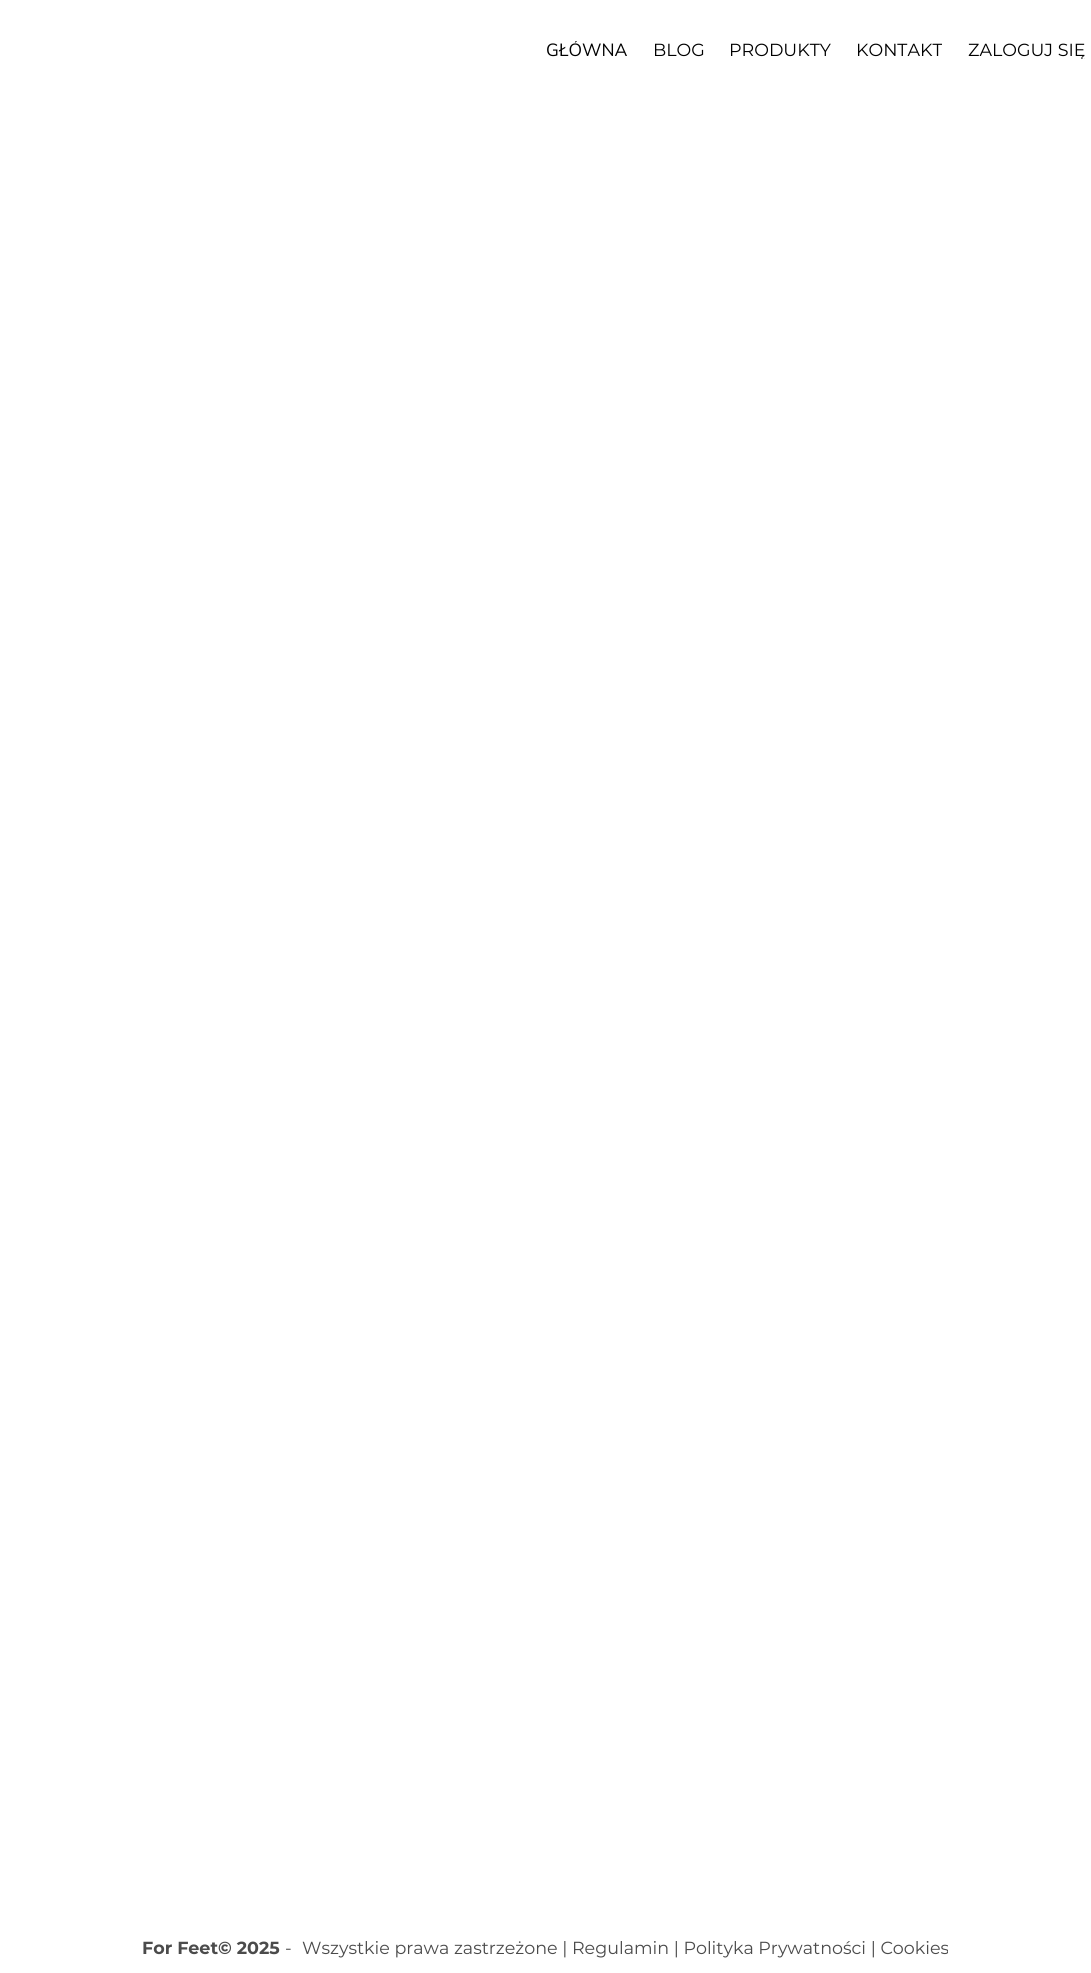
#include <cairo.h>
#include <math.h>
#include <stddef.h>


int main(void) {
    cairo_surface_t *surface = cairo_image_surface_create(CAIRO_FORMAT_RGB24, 1091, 1973);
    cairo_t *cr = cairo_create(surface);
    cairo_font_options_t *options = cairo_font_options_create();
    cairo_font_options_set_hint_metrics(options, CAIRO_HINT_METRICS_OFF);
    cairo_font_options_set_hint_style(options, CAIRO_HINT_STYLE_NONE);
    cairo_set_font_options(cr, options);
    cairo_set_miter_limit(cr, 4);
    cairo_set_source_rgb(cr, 1, 1, 1);
    cairo_paint(cr);
    cairo_save(cr);
    cairo_rectangle(cr, 546, 41, 82, 18);
    cairo_clip(cr);
    cairo_select_font_face(cr, "Muli", CAIRO_FONT_SLANT_NORMAL, CAIRO_FONT_WEIGHT_NORMAL);
    cairo_set_font_size(cr, 17.5);
    cairo_set_source_rgb(cr, 0, 0, 0);
    cairo_move_to(cr, 546, 56);
    cairo_show_text(cr, "GŁÓWNA");
    cairo_restore(cr);
    cairo_select_font_face(cr, "Montserrat", CAIRO_FONT_SLANT_NORMAL, CAIRO_FONT_WEIGHT_NORMAL);
    cairo_set_font_size(cr, 17.5);
    cairo_set_source_rgb(cr, 0, 0, 0);
    cairo_move_to(cr, 653, 56);
    cairo_show_text(cr, "BLOG");
    cairo_move_to(cr, 729, 56);
    cairo_show_text(cr, "PRODUKTY");
    cairo_move_to(cr, 856, 56);
    cairo_show_text(cr, "KONTAKT");
    cairo_save(cr);
    cairo_rectangle(cr, 968, 41, 117, 18);
    cairo_clip(cr);
    cairo_move_to(cr, 968, 56);
    cairo_show_text(cr, "ZALOGUJ SIĘ");
    cairo_restore(cr);
    cairo_select_font_face(cr, "Montserrat", CAIRO_FONT_SLANT_NORMAL, CAIRO_FONT_WEIGHT_BOLD);
    cairo_set_source_rgb(cr, 0.294, 0.294, 0.294);
    cairo_move_to(cr, 142, 1954);
    cairo_show_text(cr, "For Feet© 2025");
    cairo_select_font_face(cr, "Montserrat", CAIRO_FONT_SLANT_NORMAL, CAIRO_FONT_WEIGHT_NORMAL);
    cairo_move_to(cr, 285, 1954);
    cairo_show_text(cr, "-");
    cairo_move_to(cr, 302, 1954);
    cairo_show_text(cr, "Wszystkie prawa zastrzeżone | Regulamin | Polityka Prywatności | Cookies");
    cairo_surface_write_to_png(surface, "page.png");
    cairo_font_options_destroy(options);
    cairo_destroy(cr);
    cairo_surface_destroy(surface);
    return 0;
}
